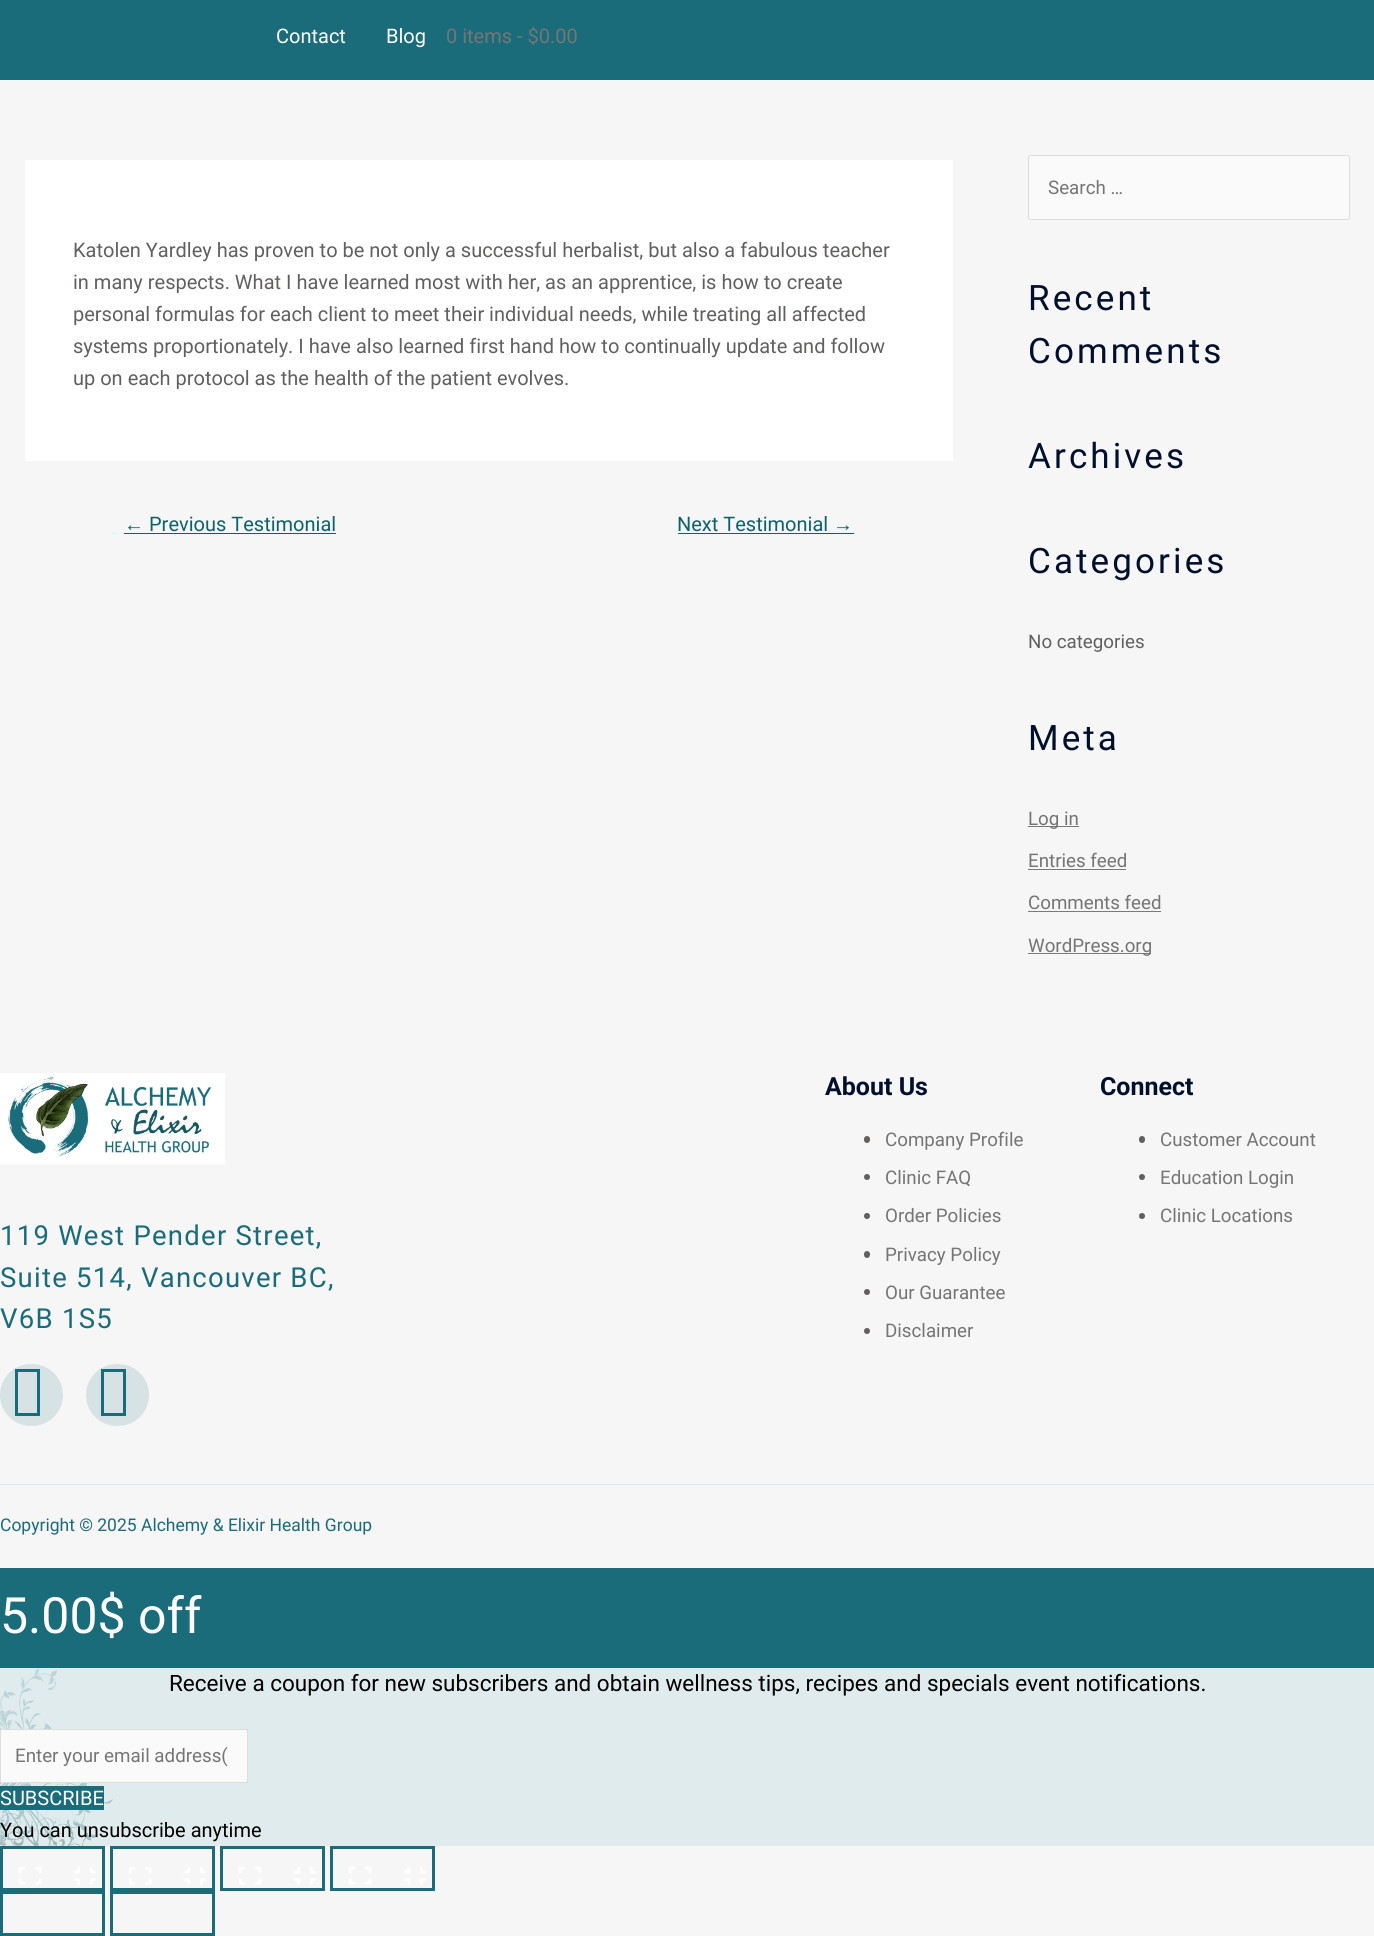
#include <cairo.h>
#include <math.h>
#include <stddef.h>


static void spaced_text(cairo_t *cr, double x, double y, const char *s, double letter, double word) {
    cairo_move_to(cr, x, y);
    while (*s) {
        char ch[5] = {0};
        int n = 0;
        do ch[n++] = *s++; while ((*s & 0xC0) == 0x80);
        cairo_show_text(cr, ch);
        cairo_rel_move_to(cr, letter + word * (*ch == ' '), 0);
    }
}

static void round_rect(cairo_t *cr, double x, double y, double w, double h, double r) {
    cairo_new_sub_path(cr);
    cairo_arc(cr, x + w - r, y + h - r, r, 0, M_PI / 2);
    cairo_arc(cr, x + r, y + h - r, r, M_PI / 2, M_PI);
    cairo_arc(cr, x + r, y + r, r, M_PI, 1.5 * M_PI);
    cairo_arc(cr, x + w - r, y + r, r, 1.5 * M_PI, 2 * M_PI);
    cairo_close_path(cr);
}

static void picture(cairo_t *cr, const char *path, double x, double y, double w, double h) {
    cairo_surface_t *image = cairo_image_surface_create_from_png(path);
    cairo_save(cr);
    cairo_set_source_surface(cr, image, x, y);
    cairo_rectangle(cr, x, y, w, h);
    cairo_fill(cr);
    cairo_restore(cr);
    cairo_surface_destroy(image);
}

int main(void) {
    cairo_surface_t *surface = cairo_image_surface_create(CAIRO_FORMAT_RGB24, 1374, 1936);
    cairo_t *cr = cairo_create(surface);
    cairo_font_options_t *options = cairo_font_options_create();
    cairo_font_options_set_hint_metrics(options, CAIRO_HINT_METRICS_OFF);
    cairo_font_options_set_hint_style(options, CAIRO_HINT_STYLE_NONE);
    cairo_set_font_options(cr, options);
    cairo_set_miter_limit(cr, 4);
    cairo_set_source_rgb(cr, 0.961, 0.961, 0.961);
    cairo_paint(cr);
    cairo_set_source_rgb(cr, 0.102, 0.424, 0.478);
    cairo_rectangle(cr, 0, 0, 1374, 80);
    cairo_fill(cr);
    cairo_select_font_face(cr, "Roboto", CAIRO_FONT_SLANT_NORMAL, CAIRO_FONT_WEIGHT_NORMAL);
    cairo_set_font_size(cr, 20);
    cairo_set_source_rgb(cr, 1, 1, 1);
    cairo_move_to(cr, 276, 43);
    cairo_show_text(cr, "Contact");
    cairo_move_to(cr, 386, 43);
    cairo_show_text(cr, "Blog");
    cairo_set_source_rgb(cr, 0.459, 0.459, 0.459);
    cairo_move_to(cr, 446, 43);
    cairo_show_text(cr, "0 items - $0.00");
    cairo_set_source_rgb(cr, 1, 1, 1);
    cairo_rectangle(cr, 25, 160, 928, 301);
    cairo_fill(cr);
    cairo_set_source_rgb(cr, 0.384, 0.373, 0.373);
    cairo_move_to(cr, 73, 257);
    cairo_show_text(cr, "Katolen Yardley has proven to be not only a successful herbalist, but also a fabulous teacher");
    cairo_move_to(cr, 73, 289);
    cairo_show_text(cr, "in many respects. What I have learned most with her, as an apprentice, is how to create");
    cairo_move_to(cr, 73, 321);
    cairo_show_text(cr, "personal formulas for each client to meet their individual needs, while treating all affected");
    cairo_move_to(cr, 73, 353);
    cairo_show_text(cr, "systems proportionately. I have also learned first hand how to continually update and follow");
    cairo_move_to(cr, 73, 385);
    cairo_show_text(cr, "up on each protocol as the health of the patient evolves.");
    cairo_select_font_face(cr, "Liberation Sans", CAIRO_FONT_SLANT_NORMAL, CAIRO_FONT_WEIGHT_NORMAL);
    cairo_set_source_rgb(cr, 0.043, 0.384, 0.42);
    cairo_move_to(cr, 124, 531);
    cairo_show_text(cr, "←");
    cairo_rectangle(cr, 124, 533, 212, 1);
    cairo_fill(cr);
    cairo_select_font_face(cr, "Roboto", CAIRO_FONT_SLANT_NORMAL, CAIRO_FONT_WEIGHT_NORMAL);
    cairo_move_to(cr, 149, 531);
    cairo_show_text(cr, "Previous Testimonial");
    cairo_move_to(cr, 677, 531);
    cairo_show_text(cr, "Next Testimonial");
    cairo_rectangle(cr, 678, 533, 176, 1);
    cairo_fill(cr);
    cairo_select_font_face(cr, "Liberation Sans", CAIRO_FONT_SLANT_NORMAL, CAIRO_FONT_WEIGHT_NORMAL);
    cairo_move_to(cr, 833, 531);
    cairo_show_text(cr, "→");
    cairo_set_source_rgb(cr, 0.98, 0.98, 0.98);
    round_rect(cr, 1028.5, 155.5, 321, 64, 2);
    cairo_fill_preserve(cr);
    cairo_set_source_rgb(cr, 0.867, 0.867, 0.867);
    cairo_set_line_width(cr, 1);
    cairo_stroke(cr);
    cairo_select_font_face(cr, "Roboto", CAIRO_FONT_SLANT_NORMAL, CAIRO_FONT_WEIGHT_NORMAL);
    cairo_set_font_size(cr, 18.75);
    cairo_set_source_rgb(cr, 0.459, 0.459, 0.459);
    cairo_move_to(cr, 1048, 194);
    cairo_show_text(cr, "Search …");
    cairo_set_font_size(cr, 35);
    cairo_set_source_rgb(cr, 0, 0.059, 0.169);
    spaced_text(cr, 1028, 310, "Recent", 3.1, 0);
    spaced_text(cr, 1028, 363, "Comments", 3.1, 0);
    spaced_text(cr, 1028, 468, "Archives", 3.1, 0);
    spaced_text(cr, 1028, 573, "Categories", 3.1, 0);
    cairo_set_font_size(cr, 18.75);
    cairo_set_source_rgb(cr, 0.384, 0.373, 0.373);
    cairo_move_to(cr, 1028, 648);
    cairo_show_text(cr, "No categories");
    cairo_set_font_size(cr, 35);
    cairo_set_source_rgb(cr, 0, 0.059, 0.169);
    spaced_text(cr, 1028, 750, "Meta", 3.1, 0);
    cairo_set_source_rgb(cr, 0.478, 0.478, 0.478);
    cairo_rectangle(cr, 1028, 826, 51, 1);
    cairo_fill(cr);
    cairo_set_font_size(cr, 18.75);
    cairo_set_source_rgb(cr, 0.459, 0.459, 0.459);
    cairo_move_to(cr, 1028, 825);
    cairo_show_text(cr, "Log in");
    cairo_move_to(cr, 1028, 867);
    cairo_show_text(cr, "Entries feed");
    cairo_set_source_rgb(cr, 0.478, 0.478, 0.478);
    cairo_rectangle(cr, 1028, 869, 98, 1);
    cairo_fill(cr);
    cairo_set_source_rgb(cr, 0.459, 0.459, 0.459);
    cairo_move_to(cr, 1028, 909);
    cairo_show_text(cr, "Comments feed");
    cairo_set_source_rgb(cr, 0.478, 0.478, 0.478);
    cairo_rectangle(cr, 1028, 911, 133, 1);
    cairo_fill(cr);
    cairo_rectangle(cr, 1028, 953, 123, 1);
    cairo_fill(cr);
    cairo_set_source_rgb(cr, 0.459, 0.459, 0.459);
    cairo_move_to(cr, 1028, 952);
    cairo_show_text(cr, "WordPress.org");
    cairo_select_font_face(cr, "Roboto", CAIRO_FONT_SLANT_NORMAL, CAIRO_FONT_WEIGHT_BOLD);
    cairo_set_font_size(cr, 25);
    cairo_set_source_rgb(cr, 0, 0.059, 0.169);
    cairo_move_to(cr, 825, 1095);
    cairo_show_text(cr, "About Us");
    cairo_set_source_rgb(cr, 0.384, 0.373, 0.373);
    round_rect(cr, 864, 1136, 6, 7, 3);
    cairo_fill(cr);
    cairo_select_font_face(cr, "Roboto", CAIRO_FONT_SLANT_NORMAL, CAIRO_FONT_WEIGHT_NORMAL);
    cairo_set_font_size(cr, 18.75);
    cairo_set_source_rgb(cr, 0.459, 0.459, 0.459);
    cairo_move_to(cr, 885, 1146);
    cairo_show_text(cr, "Company Profile");
    cairo_set_source_rgb(cr, 0.384, 0.373, 0.373);
    cairo_new_path(cr);
    cairo_arc(cr, 867, 1177, 3, 0, 2 * M_PI);
    cairo_fill(cr);
    cairo_set_source_rgb(cr, 0.459, 0.459, 0.459);
    cairo_move_to(cr, 885, 1184);
    cairo_show_text(cr, "Clinic FAQ");
    cairo_set_source_rgb(cr, 0.384, 0.373, 0.373);
    cairo_new_path(cr);
    cairo_arc(cr, 867, 1216, 3, 0, 2 * M_PI);
    cairo_fill(cr);
    cairo_set_source_rgb(cr, 0.459, 0.459, 0.459);
    cairo_move_to(cr, 885, 1222);
    cairo_show_text(cr, "Order Policies");
    cairo_set_source_rgb(cr, 0.384, 0.373, 0.373);
    round_rect(cr, 864, 1251, 6, 7, 3);
    cairo_fill(cr);
    cairo_set_source_rgb(cr, 0.459, 0.459, 0.459);
    cairo_move_to(cr, 885, 1261);
    cairo_show_text(cr, "Privacy Policy");
    cairo_set_source_rgb(cr, 0.384, 0.373, 0.373);
    cairo_new_path(cr);
    cairo_arc(cr, 867, 1292, 3, 0, 2 * M_PI);
    cairo_fill(cr);
    cairo_set_source_rgb(cr, 0.459, 0.459, 0.459);
    cairo_move_to(cr, 885, 1299);
    cairo_show_text(cr, "Our Guarantee");
    cairo_set_source_rgb(cr, 0.384, 0.373, 0.373);
    cairo_new_path(cr);
    cairo_arc(cr, 867, 1331, 3, 0, 2 * M_PI);
    cairo_fill(cr);
    cairo_set_source_rgb(cr, 0.459, 0.459, 0.459);
    cairo_move_to(cr, 885, 1337);
    cairo_show_text(cr, "Disclaimer");
    cairo_select_font_face(cr, "Roboto", CAIRO_FONT_SLANT_NORMAL, CAIRO_FONT_WEIGHT_BOLD);
    cairo_set_font_size(cr, 25);
    cairo_set_source_rgb(cr, 0, 0.059, 0.169);
    cairo_move_to(cr, 1100, 1095);
    cairo_show_text(cr, "Connect");
    cairo_set_source_rgb(cr, 0.384, 0.373, 0.373);
    round_rect(cr, 1139, 1136, 6, 7, 3);
    cairo_fill(cr);
    cairo_select_font_face(cr, "Roboto", CAIRO_FONT_SLANT_NORMAL, CAIRO_FONT_WEIGHT_NORMAL);
    cairo_set_font_size(cr, 18.75);
    cairo_set_source_rgb(cr, 0.459, 0.459, 0.459);
    cairo_move_to(cr, 1160, 1146);
    cairo_show_text(cr, "Customer Account");
    cairo_set_source_rgb(cr, 0.384, 0.373, 0.373);
    cairo_new_path(cr);
    cairo_arc(cr, 1142, 1177, 3, 0, 2 * M_PI);
    cairo_fill(cr);
    cairo_set_source_rgb(cr, 0.459, 0.459, 0.459);
    cairo_move_to(cr, 1160, 1184);
    cairo_show_text(cr, "Education Login");
    cairo_set_source_rgb(cr, 0.384, 0.373, 0.373);
    cairo_new_path(cr);
    cairo_arc(cr, 1142, 1216, 3, 0, 2 * M_PI);
    cairo_fill(cr);
    cairo_set_source_rgb(cr, 0.459, 0.459, 0.459);
    cairo_move_to(cr, 1160, 1222);
    cairo_show_text(cr, "Clinic Locations");
    picture(cr, "img1.png", 0, 1073, 225, 92);
    cairo_set_font_size(cr, 27.5);
    cairo_set_source_rgb(cr, 0.102, 0.424, 0.478);
    spaced_text(cr, 0, 1245, "119 West Pender Street,", 1.25, 0);
    spaced_text(cr, 0, 1287, "Suite 514, Vancouver BC,", 1.25, 0);
    spaced_text(cr, 0, 1328, "V6B 1S5", 1.25, 0);
    cairo_set_source_rgb(cr, 0.839, 0.886, 0.894);
    round_rect(cr, 0, 1364, 63, 62, 31);
    cairo_fill(cr);
    cairo_set_source_rgb(cr, 0.102, 0.424, 0.478);
    cairo_new_path(cr);
    cairo_move_to(cr, 15, 1416);
    cairo_line_to(cr, 15, 1369);
    cairo_line_to(cr, 40, 1369);
    cairo_line_to(cr, 40, 1416);
    cairo_close_path(cr);
    cairo_move_to(cr, 18, 1413);
    cairo_line_to(cr, 37, 1413);
    cairo_line_to(cr, 37, 1372);
    cairo_line_to(cr, 18, 1372);
    cairo_close_path(cr);
    cairo_fill(cr);
    cairo_set_source_rgb(cr, 0.839, 0.886, 0.894);
    round_rect(cr, 86, 1364, 63, 62, 31);
    cairo_fill(cr);
    cairo_set_source_rgb(cr, 0.102, 0.424, 0.478);
    cairo_new_path(cr);
    cairo_move_to(cr, 101, 1416);
    cairo_line_to(cr, 101, 1369);
    cairo_line_to(cr, 126, 1369);
    cairo_line_to(cr, 126, 1416);
    cairo_close_path(cr);
    cairo_move_to(cr, 104, 1413);
    cairo_line_to(cr, 123, 1413);
    cairo_line_to(cr, 123, 1372);
    cairo_line_to(cr, 104, 1372);
    cairo_close_path(cr);
    cairo_fill(cr);
    cairo_set_source_rgb(cr, 0.859, 0.91, 0.922);
    cairo_rectangle(cr, 0, 1484, 1374, 1);
    cairo_fill(cr);
    cairo_set_font_size(cr, 17.5);
    cairo_set_source_rgb(cr, 0.102, 0.424, 0.478);
    cairo_move_to(cr, 0, 1531);
    cairo_show_text(cr, "Copyright © 2025 Alchemy & Elixir Health Group");
    cairo_rectangle(cr, 0, 1568, 1374, 100);
    cairo_fill(cr);
    cairo_set_font_size(cr, 50);
    cairo_set_source_rgb(cr, 1, 1, 1);
    cairo_move_to(cr, 0, 1633);
    cairo_show_text(cr, "5.00$ off");
    cairo_set_source_rgb(cr, 0.875, 0.918, 0.925);
    cairo_rectangle(cr, 0, 1668, 1374, 178);
    cairo_fill(cr);
    picture(cr, "img2.png", 0, 1668, 113, 178);
    cairo_set_font_size(cr, 22.5);
    cairo_set_source_rgb(cr, 0, 0, 0);
    cairo_move_to(cr, 169, 1691);
    cairo_show_text(cr, "Receive a coupon for new subscribers and obtain wellness tips, recipes and specials event notifications.");
    cairo_set_source_rgb(cr, 0.98, 0.98, 0.98);
    cairo_rectangle(cr, 0.5, 1729.5, 247, 53);
    cairo_fill_preserve(cr);
    cairo_set_source_rgb(cr, 0.867, 0.867, 0.867);
    cairo_stroke(cr);
    cairo_set_font_size(cr, 18.75);
    cairo_set_source_rgb(cr, 0.459, 0.459, 0.459);
    cairo_move_to(cr, 15, 1762);
    cairo_show_text(cr, "Enter your email address(");
    cairo_set_source_rgb(cr, 0.102, 0.424, 0.478);
    cairo_rectangle(cr, 0, 1786, 104, 24);
    cairo_fill(cr);
    cairo_set_font_size(cr, 20);
    cairo_set_source_rgb(cr, 1, 1, 1);
    cairo_move_to(cr, 0, 1805);
    cairo_show_text(cr, "SUBSCRIBE");
    cairo_set_source_rgb(cr, 0, 0, 0);
    cairo_move_to(cr, 0, 1837);
    cairo_show_text(cr, "You can unsubscribe anytime");
    picture(cr, "img3.png", 19, 1867, 77, 18);
    cairo_rectangle(cr, 1.5, 1847.5, 102, 42);
    cairo_set_source_rgb(cr, 0.102, 0.424, 0.478);
    cairo_set_line_width(cr, 3);
    cairo_stroke(cr);
    picture(cr, "img3.png", 129, 1867, 77, 18);
    cairo_rectangle(cr, 111.5, 1847.5, 102, 42);
    cairo_stroke(cr);
    picture(cr, "img3.png", 239, 1867, 77, 18);
    cairo_rectangle(cr, 221.5, 1847.5, 102, 42);
    cairo_stroke(cr);
    picture(cr, "img3.png", 349, 1867, 77, 18);
    cairo_rectangle(cr, 331.5, 1847.5, 102, 42);
    cairo_stroke(cr);
    cairo_rectangle(cr, 1.5, 1892.5, 102, 42);
    cairo_stroke(cr);
    cairo_rectangle(cr, 111.5, 1892.5, 102, 42);
    cairo_stroke(cr);
    cairo_surface_write_to_png(surface, "page.png");
    cairo_font_options_destroy(options);
    cairo_destroy(cr);
    cairo_surface_destroy(surface);
    return 0;
}
